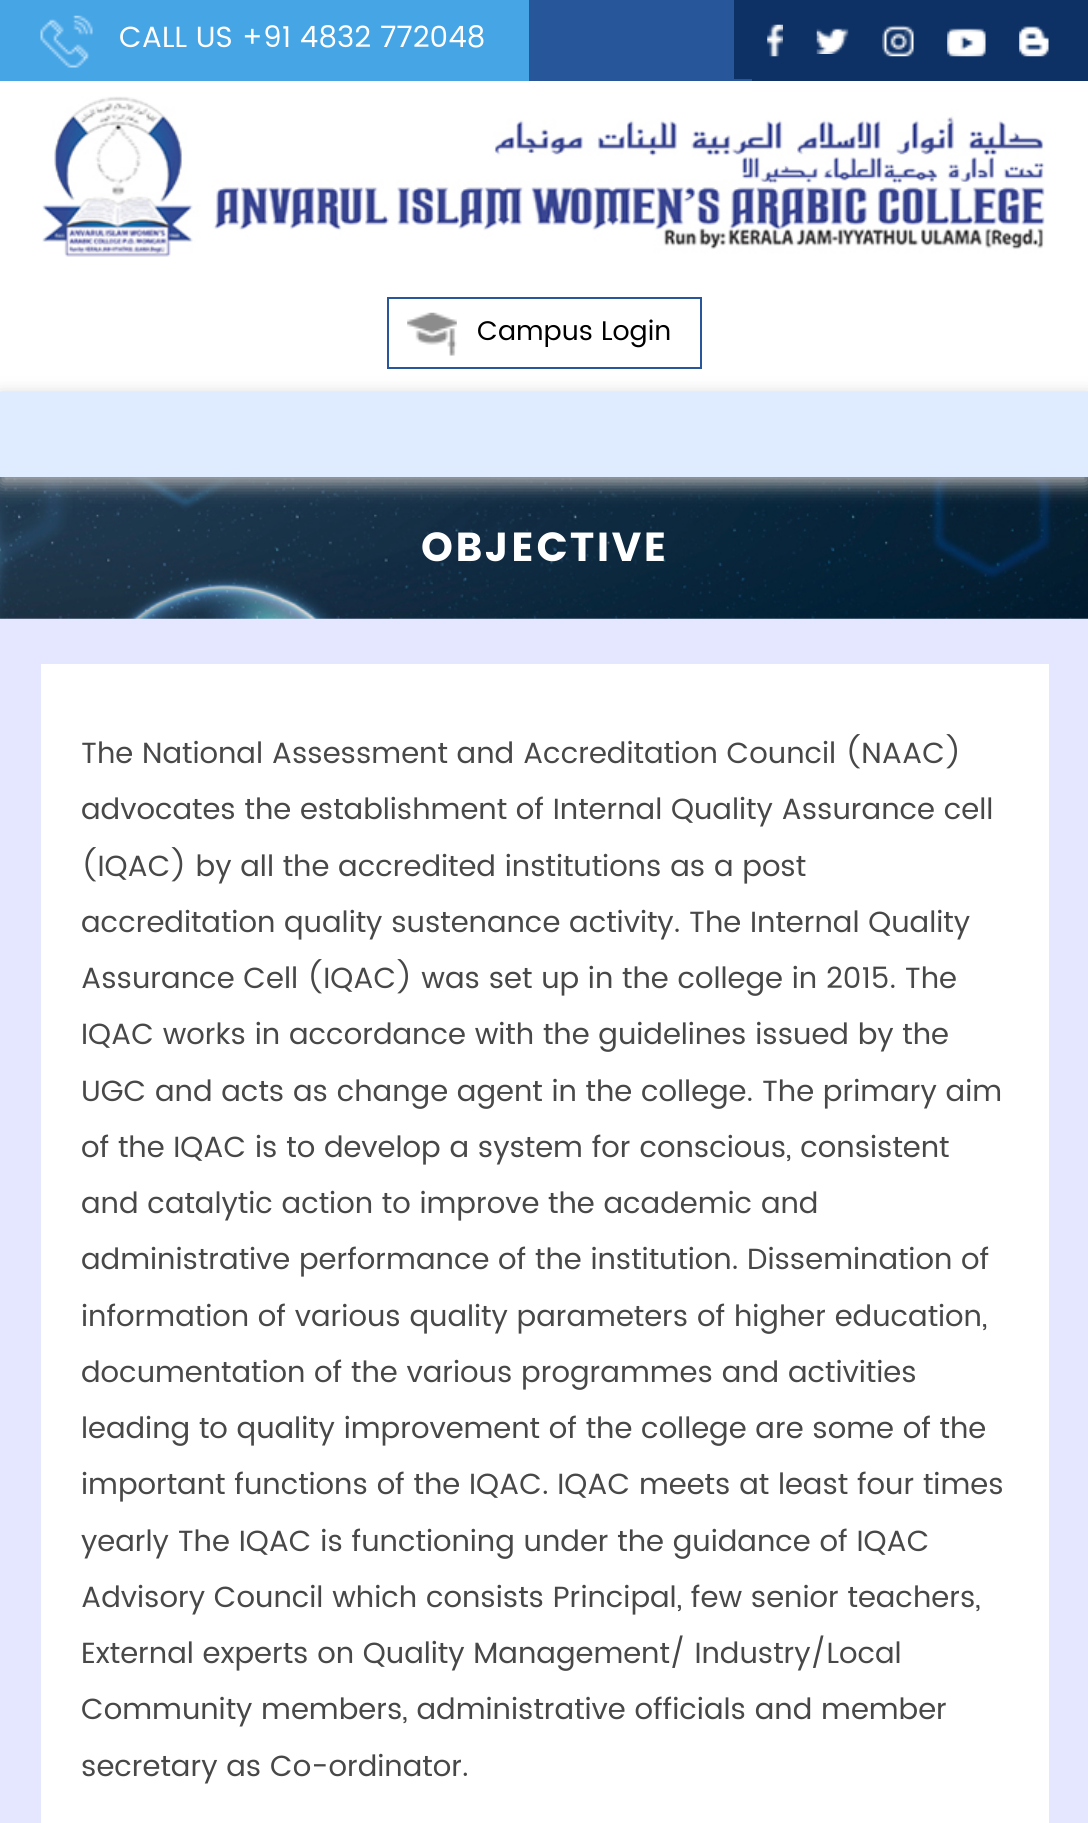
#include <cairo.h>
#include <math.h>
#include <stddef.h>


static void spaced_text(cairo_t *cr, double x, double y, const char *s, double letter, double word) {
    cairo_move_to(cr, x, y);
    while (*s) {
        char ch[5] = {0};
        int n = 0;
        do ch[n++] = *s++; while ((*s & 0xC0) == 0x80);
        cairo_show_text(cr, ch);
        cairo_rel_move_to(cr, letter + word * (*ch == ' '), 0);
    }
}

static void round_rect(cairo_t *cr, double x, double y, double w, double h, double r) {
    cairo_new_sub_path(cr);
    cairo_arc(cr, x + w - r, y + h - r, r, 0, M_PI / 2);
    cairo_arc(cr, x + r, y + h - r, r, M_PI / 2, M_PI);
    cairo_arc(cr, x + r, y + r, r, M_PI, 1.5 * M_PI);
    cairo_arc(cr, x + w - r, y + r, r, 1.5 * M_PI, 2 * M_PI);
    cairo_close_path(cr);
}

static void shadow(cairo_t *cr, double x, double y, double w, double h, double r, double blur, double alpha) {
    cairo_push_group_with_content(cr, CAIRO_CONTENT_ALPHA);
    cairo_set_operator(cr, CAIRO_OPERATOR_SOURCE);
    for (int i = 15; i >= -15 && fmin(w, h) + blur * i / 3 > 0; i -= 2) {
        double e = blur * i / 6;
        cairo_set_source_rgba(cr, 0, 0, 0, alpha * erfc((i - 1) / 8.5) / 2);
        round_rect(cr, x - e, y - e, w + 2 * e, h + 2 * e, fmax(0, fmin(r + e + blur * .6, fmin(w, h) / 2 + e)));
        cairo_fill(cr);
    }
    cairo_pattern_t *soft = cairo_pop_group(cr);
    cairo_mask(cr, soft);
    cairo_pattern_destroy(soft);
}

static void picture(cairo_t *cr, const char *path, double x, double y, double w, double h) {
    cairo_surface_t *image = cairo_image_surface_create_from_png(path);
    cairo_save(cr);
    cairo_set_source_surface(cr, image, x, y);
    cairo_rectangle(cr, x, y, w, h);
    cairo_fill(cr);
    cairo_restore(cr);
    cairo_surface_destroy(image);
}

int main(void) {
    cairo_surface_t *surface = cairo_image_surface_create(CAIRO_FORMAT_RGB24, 1088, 1823);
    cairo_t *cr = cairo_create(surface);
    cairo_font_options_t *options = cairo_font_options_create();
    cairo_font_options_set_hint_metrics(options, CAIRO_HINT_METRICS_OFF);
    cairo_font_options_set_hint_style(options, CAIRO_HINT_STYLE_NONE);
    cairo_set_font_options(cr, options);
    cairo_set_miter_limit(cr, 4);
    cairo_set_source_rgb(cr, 1, 1, 1);
    cairo_paint(cr);
    cairo_set_source_rgb(cr, 0.157, 0.337, 0.604);
    cairo_rectangle(cr, 529, 0, 223, 81);
    cairo_fill(cr);
    cairo_set_source_rgb(cr, 0.275, 0.647, 0.898);
    cairo_rectangle(cr, 0, 0, 529, 81);
    cairo_fill(cr);
    cairo_set_source_rgb(cr, 0.055, 0.192, 0.396);
    cairo_rectangle(cr, 752, 0, 336, 81);
    cairo_fill(cr);
    picture(cr, "img1.png", 40, 15, 53, 53);
    cairo_select_font_face(cr, "Poppins", CAIRO_FONT_SLANT_NORMAL, CAIRO_FONT_WEIGHT_NORMAL);
    cairo_set_font_size(cr, 29.25);
    cairo_set_source_rgb(cr, 1, 1, 1);
    cairo_move_to(cr, 119, 47);
    cairo_show_text(cr, "CALL US +91 4832 772048");
    cairo_set_source_rgb(cr, 0.055, 0.192, 0.396);
    cairo_rectangle(cr, 734, 0, 18, 79);
    cairo_fill(cr);
    picture(cr, "img2.png", 767, 24, 16, 33);
    picture(cr, "img3.png", 816, 28, 33, 26);
    picture(cr, "img4.png", 882, 25, 32, 32);
    picture(cr, "img5.png", 947, 28, 39, 29);
    picture(cr, "img6.png", 1019, 26, 30, 31);
    picture(cr, "img7.png", 42, 96, 1003, 161);
    picture(cr, "img8.png", 407, 312, 50, 44);
    cairo_rectangle(cr, 388, 298, 313, 70);
    cairo_set_source_rgb(cr, 0.157, 0.337, 0.604);
    cairo_stroke(cr);
    cairo_set_font_size(cr, 27);
    cairo_set_source_rgb(cr, 0, 0, 0);
    cairo_move_to(cr, 477, 340);
    cairo_show_text(cr, "Campus Login");
    cairo_set_source_rgb(cr, 0.894, 0.906, 1);
    cairo_rectangle(cr, 0, 618, 1088, 1205);
    cairo_fill(cr);
    picture(cr, "img9.png", 0, 477, 1088, 142);
    cairo_set_source_rgb(cr, 0.702, 0.702, 0.702);
    shadow(cr, 0, 398, 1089, 86, 0, 9, 1);
    cairo_set_source_rgb(cr, 0.875, 0.925, 1);
    cairo_rectangle(cr, 0, 392, 1088, 85);
    cairo_fill(cr);
    cairo_select_font_face(cr, "Poppins", CAIRO_FONT_SLANT_NORMAL, CAIRO_FONT_WEIGHT_BOLD);
    cairo_set_font_size(cr, 40.5);
    cairo_set_source_rgb(cr, 1, 1, 1);
    spaced_text(cr, 421, 561, "OBJECTIVE", 2.25, 0);
    cairo_rectangle(cr, 41, 664, 1008, 1159);
    cairo_fill(cr);
    cairo_select_font_face(cr, "Poppins", CAIRO_FONT_SLANT_NORMAL, CAIRO_FONT_WEIGHT_NORMAL);
    cairo_set_font_size(cr, 29.25);
    cairo_set_source_rgb(cr, 0.282, 0.282, 0.282);
    cairo_move_to(cr, 81, 763);
    cairo_show_text(cr, "The National Assessment and Accreditation Council (NAAC)");
    cairo_move_to(cr, 81, 819);
    cairo_show_text(cr, "advocates the establishment of Internal Quality Assurance cell");
    cairo_move_to(cr, 81, 876);
    cairo_show_text(cr, "(IQAC) by all the accredited institutions as a post");
    cairo_move_to(cr, 81, 932);
    cairo_show_text(cr, "accreditation quality sustenance activity. The Internal Quality");
    cairo_move_to(cr, 81, 988);
    cairo_show_text(cr, "Assurance Cell (IQAC) was set up in the college in 2015. The");
    cairo_move_to(cr, 81, 1044);
    cairo_show_text(cr, "IQAC works in accordance with the guidelines issued by the");
    cairo_move_to(cr, 81, 1101);
    cairo_show_text(cr, "UGC and acts as change agent in the college. The primary aim");
    cairo_move_to(cr, 81, 1157);
    cairo_show_text(cr, "of the IQAC is to develop a system for conscious, consistent");
    cairo_move_to(cr, 81, 1213);
    cairo_show_text(cr, "and catalytic action to improve the academic and");
    cairo_move_to(cr, 81, 1269);
    cairo_show_text(cr, "administrative performance of the institution. Dissemination of");
    cairo_move_to(cr, 81, 1326);
    cairo_show_text(cr, "information of various quality parameters of higher education,");
    cairo_move_to(cr, 81, 1382);
    cairo_show_text(cr, "documentation of the various programmes and activities");
    cairo_move_to(cr, 81, 1438);
    cairo_show_text(cr, "leading to quality improvement of the college are some of the");
    cairo_move_to(cr, 81, 1494);
    cairo_show_text(cr, "important functions of the IQAC. IQAC meets at least four times");
    cairo_move_to(cr, 81, 1551);
    cairo_show_text(cr, "yearly The IQAC is functioning under the guidance of IQAC");
    cairo_move_to(cr, 81, 1607);
    cairo_show_text(cr, "Advisory Council which consists Principal, few senior teachers,");
    cairo_move_to(cr, 81, 1663);
    cairo_show_text(cr, "External experts on Quality Management/ Industry/Local");
    cairo_move_to(cr, 81, 1719);
    cairo_show_text(cr, "Community members, administrative officials and member");
    cairo_move_to(cr, 81, 1776);
    cairo_show_text(cr, "secretary as Co-ordinator.");
    cairo_surface_write_to_png(surface, "page.png");
    cairo_font_options_destroy(options);
    cairo_destroy(cr);
    cairo_surface_destroy(surface);
    return 0;
}
